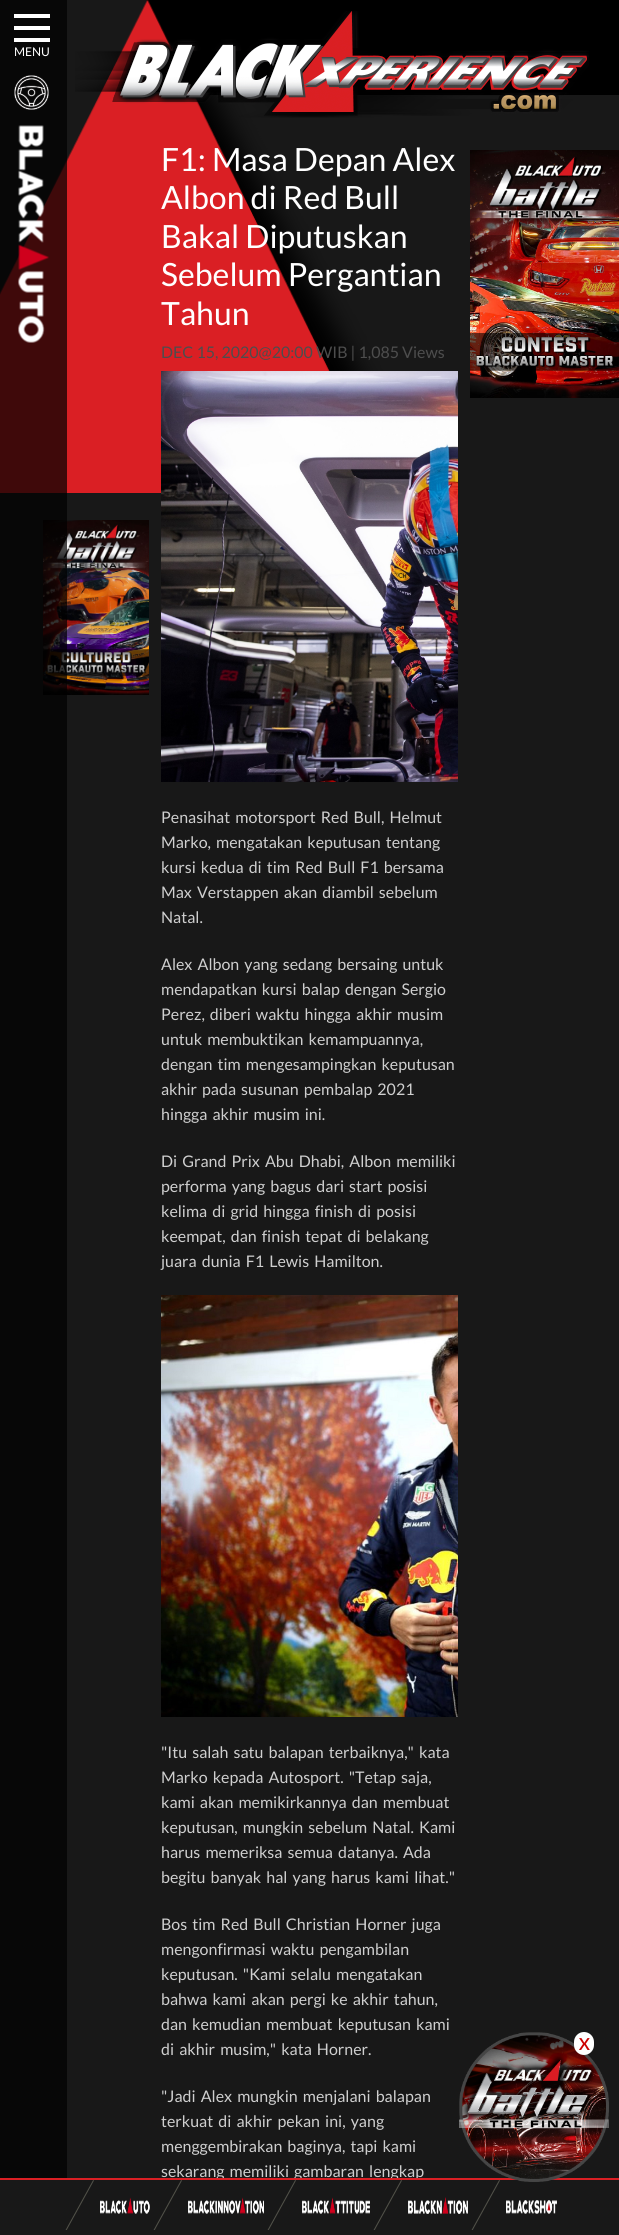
#include <cairo.h>
#include <math.h>
#include <stddef.h>


static void spaced_text(cairo_t *cr, double x, double y, const char *s, double letter, double word) {
    cairo_move_to(cr, x, y);
    while (*s) {
        char ch[5] = {0};
        int n = 0;
        do ch[n++] = *s++; while ((*s & 0xC0) == 0x80);
        cairo_show_text(cr, ch);
        cairo_rel_move_to(cr, letter + word * (*ch == ' '), 0);
    }
}

static void round_rect(cairo_t *cr, double x, double y, double w, double h, double r) {
    cairo_new_sub_path(cr);
    cairo_arc(cr, x + w - r, y + h - r, r, 0, M_PI / 2);
    cairo_arc(cr, x + r, y + h - r, r, M_PI / 2, M_PI);
    cairo_arc(cr, x + r, y + r, r, M_PI, 1.5 * M_PI);
    cairo_arc(cr, x + w - r, y + r, r, 1.5 * M_PI, 2 * M_PI);
    cairo_close_path(cr);
}

static void picture(cairo_t *cr, const char *path, double x, double y, double w, double h) {
    cairo_surface_t *image = cairo_image_surface_create_from_png(path);
    cairo_save(cr);
    cairo_set_source_surface(cr, image, x, y);
    cairo_rectangle(cr, x, y, w, h);
    cairo_fill(cr);
    cairo_restore(cr);
    cairo_surface_destroy(image);
}

int main(void) {
    cairo_surface_t *surface = cairo_image_surface_create(CAIRO_FORMAT_RGB24, 619, 2235);
    cairo_t *cr = cairo_create(surface);
    cairo_font_options_t *options = cairo_font_options_create();
    cairo_font_options_set_hint_metrics(options, CAIRO_HINT_METRICS_OFF);
    cairo_font_options_set_hint_style(options, CAIRO_HINT_STYLE_NONE);
    cairo_set_font_options(cr, options);
    cairo_set_miter_limit(cr, 4);
    cairo_set_source_rgb(cr, 0.094, 0.094, 0.094);
    cairo_paint(cr);
    cairo_set_source_rgb(cr, 0, 0, 0);
    cairo_rectangle(cr, 147, 0, 472, 95);
    cairo_fill(cr);
    picture(cr, "img1.png", 0, 0, 383, 493);
    picture(cr, "img8.png", 43, 520, 106, 175);
    cairo_set_source_rgba(cr, 0, 0, 0, 0.71);
    cairo_rectangle(cr, 0, 0, 67, 2178);
    cairo_fill(cr);
    cairo_set_source_rgb(cr, 1, 1, 1);
    cairo_rectangle(cr, 14, 14, 36, 4);
    cairo_fill(cr);
    cairo_rectangle(cr, 14, 26, 36, 4);
    cairo_fill(cr);
    cairo_rectangle(cr, 14, 38, 36, 4);
    cairo_fill(cr);
    cairo_select_font_face(cr, "Lato", CAIRO_FONT_SLANT_NORMAL, CAIRO_FONT_WEIGHT_NORMAL);
    cairo_set_font_size(cr, 12);
    cairo_move_to(cr, 14, 56);
    cairo_show_text(cr, "MENU");
    picture(cr, "img2.png", 75, 11, 514, 107);
    picture(cr, "img3.png", 14, 75, 35, 35);
    picture(cr, "img4.png", 18, 125, 31, 218);
    cairo_set_font_size(cr, 32);
    cairo_move_to(cr, 161, 171);
    cairo_show_text(cr, "F1: Masa Depan Alex");
    cairo_move_to(cr, 161, 209);
    cairo_show_text(cr, "Albon di Red Bull");
    cairo_move_to(cr, 161, 248);
    cairo_show_text(cr, "Bakal Diputuskan");
    cairo_move_to(cr, 161, 286);
    cairo_show_text(cr, "Sebelum Pergantian");
    cairo_move_to(cr, 161, 325);
    cairo_show_text(cr, "Tahun");
    cairo_set_font_size(cr, 16);
    cairo_set_source_rgb(cr, 0.302, 0.302, 0.302);
    cairo_move_to(cr, 161, 358);
    cairo_show_text(cr, "DEC 15, 2020@20:00 WIB | 1,085 Views");
    picture(cr, "img5.png", 161, 371, 297, 411);
    cairo_set_source_rgb(cr, 0.812, 0.812, 0.812);
    spaced_text(cr, 161, 823, "Penasihat motorsport Red Bull, Helmut", 0, 2);
    spaced_text(cr, 161, 848, "Marko, mengatakan keputusan tentang", 0, 2);
    spaced_text(cr, 161, 873, "kursi kedua di tim Red Bull F1 bersama", 0, 2);
    spaced_text(cr, 161, 898, "Max Verstappen akan diambil sebelum", 0, 2);
    cairo_move_to(cr, 161, 923);
    cairo_show_text(cr, "Natal.");
    spaced_text(cr, 161, 970, "Alex Albon yang sedang bersaing untuk", 0, 2);
    spaced_text(cr, 161, 995, "mendapatkan kursi balap dengan Sergio", 0, 2);
    spaced_text(cr, 161, 1020, "Perez, diberi waktu hingga akhir musim", 0, 2);
    spaced_text(cr, 161, 1045, "untuk membuktikan kemampuannya,", 0, 2);
    spaced_text(cr, 161, 1070, "dengan tim mengesampingkan keputusan", 0, 2);
    spaced_text(cr, 161, 1095, "akhir pada susunan pembalap 2021", 0, 2);
    spaced_text(cr, 161, 1120, "hingga akhir musim ini.", 0, 2);
    spaced_text(cr, 161, 1167, "Di Grand Prix Abu Dhabi, Albon memiliki", 0, 2);
    spaced_text(cr, 161, 1192, "performa yang bagus dari start posisi", 0, 2);
    spaced_text(cr, 161, 1217, "kelima di grid hingga finish di posisi", 0, 2);
    spaced_text(cr, 161, 1242, "keempat, dan finish tepat di belakang", 0, 2);
    spaced_text(cr, 161, 1267, "juara dunia F1 Lewis Hamilton.", 0, 2);
    picture(cr, "img6.png", 161, 1295, 297, 422);
    spaced_text(cr, 161, 1758, "\"Itu salah satu balapan terbaiknya,\" kata", 0, 2);
    spaced_text(cr, 161, 1783, "Marko kepada Autosport. \"Tetap saja,", 0, 2);
    spaced_text(cr, 161, 1808, "kami akan memikirkannya dan membuat", 0, 2);
    spaced_text(cr, 161, 1833, "keputusan, mungkin sebelum Natal. Kami", 0, 2);
    spaced_text(cr, 161, 1858, "harus memeriksa semua datanya. Ada", 0, 2);
    spaced_text(cr, 161, 1883, "begitu banyak hal yang harus kami lihat.\"", 0, 2);
    spaced_text(cr, 161, 1930, "Bos tim Red Bull Christian Horner juga", 0, 2);
    spaced_text(cr, 161, 1955, "mengonfirmasi waktu pengambilan", 0, 2);
    spaced_text(cr, 161, 1980, "keputusan. \"Kami selalu mengatakan", 0, 2);
    spaced_text(cr, 161, 2005, "bahwa kami akan pergi ke akhir tahun,", 0, 2);
    spaced_text(cr, 161, 2030, "dan kemudian membuat keputusan kami", 0, 2);
    spaced_text(cr, 161, 2055, "di akhir musim,\" kata Horner.", 0, 2);
    spaced_text(cr, 161, 2102, "\"Jadi Alex mungkin menjalani balapan", 0, 2);
    spaced_text(cr, 161, 2127, "terkuat di akhir pekan ini, yang", 0, 2);
    spaced_text(cr, 161, 2152, "menggembirakan baginya, tapi kami", 0, 2);
    spaced_text(cr, 161, 2177, "sekarang memiliki gambaran lengkap", 0, 2);
    picture(cr, "img7.png", 470, 150, 149, 248);
    cairo_set_source_rgb(cr, 0.855, 0.122, 0.141);
    cairo_rectangle(cr, 0, 2178, 619, 2);
    cairo_fill(cr);
    picture(cr, "img10.png", 471, 2180, 29, 50);
    picture(cr, "img9.png", 459, 2032, 150, 150);
    cairo_set_source_rgb(cr, 1, 1, 1);
    round_rect(cr, 574, 2032, 20, 23, 10);
    cairo_fill(cr);
    cairo_select_font_face(cr, "Lato", CAIRO_FONT_SLANT_NORMAL, CAIRO_FONT_WEIGHT_BOLD);
    cairo_set_source_rgb(cr, 0.8, 0, 0);
    cairo_move_to(cr, 579, 2050);
    cairo_show_text(cr, "X");
    picture(cr, "img10.png", 65, 2180, 29, 50);
    picture(cr, "img11.png", 100, 2197, 50, 17);
    picture(cr, "img10.png", 153, 2180, 29, 50);
    picture(cr, "img12.png", 188, 2197, 76, 17);
    picture(cr, "img10.png", 267, 2180, 29, 50);
    picture(cr, "img13.png", 302, 2197, 68, 17);
    picture(cr, "img10.png", 373, 2180, 29, 50);
    picture(cr, "img14.png", 408, 2197, 60, 17);
    picture(cr, "img15.png", 506, 2200, 51, 14);
    cairo_surface_write_to_png(surface, "page.png");
    cairo_font_options_destroy(options);
    cairo_destroy(cr);
    cairo_surface_destroy(surface);
    return 0;
}
